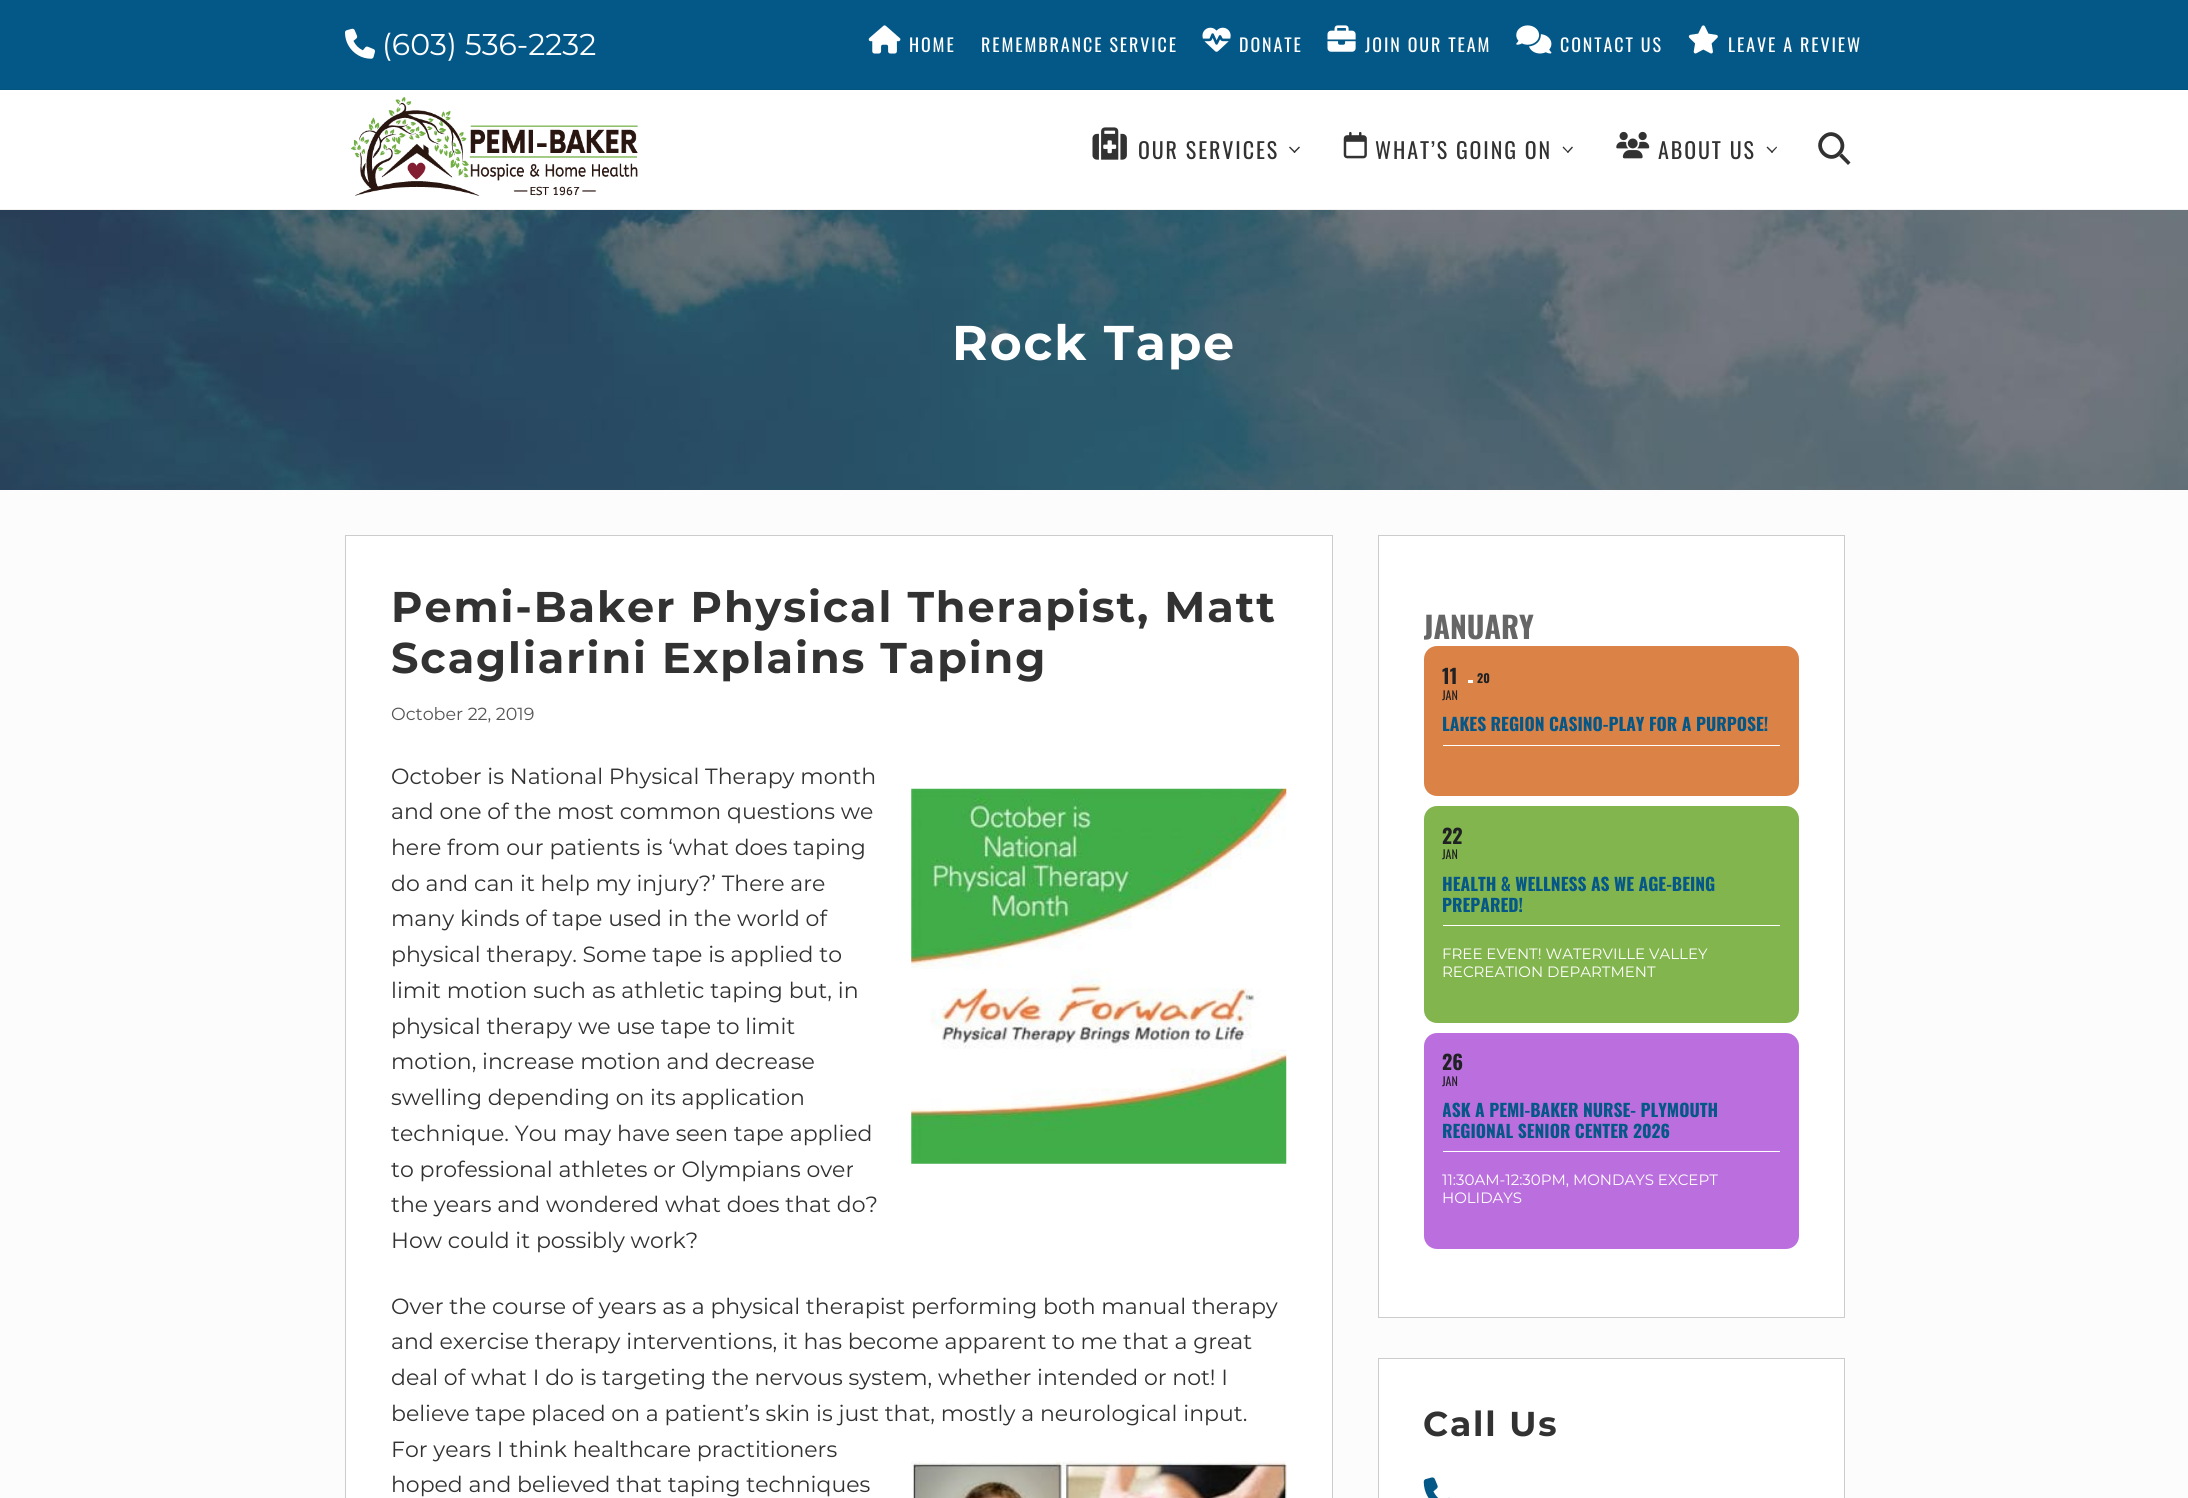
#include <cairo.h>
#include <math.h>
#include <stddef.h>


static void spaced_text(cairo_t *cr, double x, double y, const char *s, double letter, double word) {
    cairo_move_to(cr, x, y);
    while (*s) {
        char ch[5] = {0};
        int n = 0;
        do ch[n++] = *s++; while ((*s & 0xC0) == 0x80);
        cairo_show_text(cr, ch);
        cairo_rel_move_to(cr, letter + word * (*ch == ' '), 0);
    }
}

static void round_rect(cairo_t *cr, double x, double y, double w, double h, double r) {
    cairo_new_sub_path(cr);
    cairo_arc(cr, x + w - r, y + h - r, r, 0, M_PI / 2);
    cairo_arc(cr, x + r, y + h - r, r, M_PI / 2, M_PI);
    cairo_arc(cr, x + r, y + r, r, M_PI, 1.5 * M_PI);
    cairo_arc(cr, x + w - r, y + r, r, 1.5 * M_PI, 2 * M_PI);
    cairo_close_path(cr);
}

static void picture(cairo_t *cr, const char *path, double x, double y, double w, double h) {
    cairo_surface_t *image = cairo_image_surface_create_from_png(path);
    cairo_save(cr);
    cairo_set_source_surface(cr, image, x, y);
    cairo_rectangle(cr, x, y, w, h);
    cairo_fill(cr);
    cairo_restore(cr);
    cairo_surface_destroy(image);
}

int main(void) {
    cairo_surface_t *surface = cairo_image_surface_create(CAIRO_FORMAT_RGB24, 2188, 1498);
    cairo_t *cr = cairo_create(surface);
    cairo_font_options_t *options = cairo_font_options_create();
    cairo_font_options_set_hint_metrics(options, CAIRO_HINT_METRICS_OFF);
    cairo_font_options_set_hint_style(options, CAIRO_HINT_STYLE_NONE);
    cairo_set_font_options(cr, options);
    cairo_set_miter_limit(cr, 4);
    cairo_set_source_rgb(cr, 0.988, 0.988, 0.988);
    cairo_paint(cr);
    cairo_set_source_rgb(cr, 0.016, 0.345, 0.529);
    cairo_rectangle(cr, 0, 0, 2188, 89);
    cairo_fill(cr);
    cairo_set_source_rgb(cr, 0.016, 0.329, 0.502);
    cairo_rectangle(cr, 0, 89, 2188, 1);
    cairo_fill(cr);
    picture(cr, "img1.png", 345, 28, 30, 31);
    cairo_select_font_face(cr, "Montserrat", CAIRO_FONT_SLANT_NORMAL, CAIRO_FONT_WEIGHT_NORMAL);
    cairo_set_font_size(cr, 30);
    cairo_set_source_rgb(cr, 1, 1, 1);
    cairo_move_to(cr, 382, 55);
    cairo_show_text(cr, "(603) 536-2232");
    picture(cr, "img2.png", 868, 25, 33, 29);
    cairo_select_font_face(cr, "Oswald", CAIRO_FONT_SLANT_NORMAL, CAIRO_FONT_WEIGHT_NORMAL);
    cairo_set_font_size(cr, 18);
    spaced_text(cr, 909, 52, "HOME", 1.9, 0);
    spaced_text(cr, 981, 52, "REMEMBRANCE SERVICE", 1.9, 0);
    picture(cr, "img3.png", 1202, 27, 29, 25);
    spaced_text(cr, 1239, 52, "DONATE", 1.9, 0);
    picture(cr, "img4.png", 1327, 25, 29, 27);
    spaced_text(cr, 1365, 52, "JOIN OUR TEAM", 1.9, 0);
    picture(cr, "img5.png", 1516, 25, 36, 29);
    spaced_text(cr, 1560, 52, "CONTACT US", 1.9, 0);
    picture(cr, "img6.png", 1688, 25, 30, 29);
    spaced_text(cr, 1728, 52, "LEAVE A REVIEW", 1.9, 0);
    cairo_rectangle(cr, 0, 90, 2188, 119);
    cairo_fill(cr);
    cairo_set_source_rgb(cr, 0.949, 0.949, 0.949);
    cairo_rectangle(cr, 0, 209, 2188, 1);
    cairo_fill(cr);
    picture(cr, "img7.png", 350, 96, 288, 100);
    picture(cr, "img8.png", 1092, 127, 35, 33);
    cairo_set_font_size(cr, 22);
    cairo_set_source_rgb(cr, 0.196, 0.196, 0.196);
    spaced_text(cr, 1138, 159, "OUR SERVICES", 1.9, 0);
    cairo_new_path(cr);
    cairo_move_to(cr, 1299, 146.5);
    cairo_line_to(cr, 1300, 147.5);
    cairo_line_to(cr, 1294.5, 153);
    cairo_line_to(cr, 1293.5, 152);
    cairo_close_path(cr);
    cairo_fill(cr);
    cairo_new_path(cr);
    cairo_move_to(cr, 1290, 146.5);
    cairo_line_to(cr, 1295.5, 152);
    cairo_line_to(cr, 1294.5, 153);
    cairo_line_to(cr, 1289, 147.5);
    cairo_close_path(cr);
    cairo_fill(cr);
    picture(cr, "img9.png", 1343, 131, 24, 28);
    spaced_text(cr, 1375, 159, "WHAT’S GOING ON", 1.9, 0);
    cairo_new_path(cr);
    cairo_move_to(cr, 1572, 146.5);
    cairo_line_to(cr, 1573, 147.5);
    cairo_line_to(cr, 1568, 153);
    cairo_line_to(cr, 1567, 152);
    cairo_close_path(cr);
    cairo_fill(cr);
    cairo_new_path(cr);
    cairo_move_to(cr, 1563.5, 146.5);
    cairo_line_to(cr, 1568.5, 152);
    cairo_line_to(cr, 1568, 153);
    cairo_line_to(cr, 1562.5, 147.5);
    cairo_close_path(cr);
    cairo_fill(cr);
    picture(cr, "img10.png", 1616, 131, 34, 28);
    spaced_text(cr, 1658, 159, "ABOUT US", 1.9, 0);
    cairo_new_path(cr);
    cairo_move_to(cr, 1776.5, 146.5);
    cairo_line_to(cr, 1777, 147.5);
    cairo_line_to(cr, 1772, 153);
    cairo_line_to(cr, 1771, 152);
    cairo_close_path(cr);
    cairo_fill(cr);
    cairo_new_path(cr);
    cairo_move_to(cr, 1767.5, 146.5);
    cairo_line_to(cr, 1773, 152);
    cairo_line_to(cr, 1772, 153);
    cairo_line_to(cr, 1766.5, 147.5);
    cairo_close_path(cr);
    cairo_fill(cr);
    cairo_new_path(cr);
    cairo_move_to(cr, 1823.5, 137.5);
    cairo_curve_to(cr, 1833.5, 127, 1849.5, 143, 1839, 153.5);
    cairo_curve_to(cr, 1829, 164, 1813, 148, 1823.5, 137.5);
    cairo_close_path(cr);
    cairo_set_line_width(cr, 3.8);
    cairo_stroke(cr);
    cairo_new_path(cr);
    cairo_move_to(cr, 1839, 156);
    cairo_line_to(cr, 1842, 153.5);
    cairo_line_to(cr, 1850.5, 162.5);
    cairo_line_to(cr, 1848, 165);
    cairo_close_path(cr);
    cairo_fill(cr);
    picture(cr, "img11.png", 0, 210, 2188, 280);
    cairo_select_font_face(cr, "Montserrat", CAIRO_FONT_SLANT_NORMAL, CAIRO_FONT_WEIGHT_BOLD);
    cairo_set_font_size(cr, 48.75);
    cairo_set_source_rgb(cr, 1, 1, 1);
    spaced_text(cr, 952, 360, "Rock Tape", 1.9, 0);
    cairo_rectangle(cr, 345.5, 535.5, 987, 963);
    cairo_fill_preserve(cr);
    cairo_set_source_rgb(cr, 0.8, 0.8, 0.8);
    cairo_set_line_width(cr, 1);
    cairo_stroke(cr);
    cairo_set_font_size(cr, 43);
    cairo_set_source_rgb(cr, 0.196, 0.196, 0.196);
    spaced_text(cr, 391, 622, "Pemi-Baker Physical Therapist, Matt", 1.9, 0);
    spaced_text(cr, 391, 673, "Scagliarini Explains Taping", 1.9, 0);
    cairo_select_font_face(cr, "Montserrat", CAIRO_FONT_SLANT_NORMAL, CAIRO_FONT_WEIGHT_NORMAL);
    cairo_set_font_size(cr, 17.5);
    cairo_set_source_rgb(cr, 0.333, 0.333, 0.333);
    cairo_move_to(cr, 391, 720);
    cairo_show_text(cr, "October 22, 2019");
    cairo_set_font_size(cr, 22);
    cairo_set_source_rgb(cr, 0.196, 0.196, 0.196);
    cairo_move_to(cr, 391, 784);
    cairo_show_text(cr, "October is National Physical Therapy month");
    cairo_move_to(cr, 391, 819);
    cairo_show_text(cr, "and one of the most common questions we");
    cairo_move_to(cr, 391, 855);
    cairo_show_text(cr, "here from our patients is ‘what does taping");
    cairo_move_to(cr, 391, 891);
    cairo_show_text(cr, "do and can it help my injury?’ There are");
    cairo_move_to(cr, 391, 926);
    cairo_show_text(cr, "many kinds of tape used in the world of");
    cairo_move_to(cr, 391, 962);
    cairo_show_text(cr, "physical therapy. Some tape is applied to");
    cairo_move_to(cr, 391, 998);
    cairo_show_text(cr, "limit motion such as athletic taping but, in");
    cairo_move_to(cr, 391, 1034);
    cairo_show_text(cr, "physical therapy we use tape to limit");
    cairo_move_to(cr, 391, 1069);
    cairo_show_text(cr, "motion, increase motion and decrease");
    cairo_move_to(cr, 391, 1105);
    cairo_show_text(cr, "swelling depending on its application");
    cairo_move_to(cr, 391, 1141);
    cairo_show_text(cr, "technique. You may have seen tape applied");
    cairo_move_to(cr, 391, 1177);
    cairo_show_text(cr, "to professional athletes or Olympians over");
    cairo_move_to(cr, 391, 1212);
    cairo_show_text(cr, "the years and wondered what does that do?");
    cairo_move_to(cr, 391, 1248);
    cairo_show_text(cr, "How could it possibly work?");
    picture(cr, "img12.png", 911, 788, 376, 376);
    cairo_move_to(cr, 391, 1314);
    cairo_show_text(cr, "Over the course of years as a physical therapist performing both manual therapy");
    cairo_move_to(cr, 391, 1349);
    cairo_show_text(cr, "and exercise therapy interventions, it has become apparent to me that a great");
    cairo_move_to(cr, 391, 1385);
    cairo_show_text(cr, "deal of what I do is targeting the nervous system, whether intended or not! I");
    cairo_move_to(cr, 391, 1421);
    cairo_show_text(cr, "believe tape placed on a patient’s skin is just that, mostly a neurological input.");
    cairo_move_to(cr, 391, 1457);
    cairo_show_text(cr, "For years I think healthcare practitioners");
    cairo_move_to(cr, 391, 1492);
    cairo_show_text(cr, "hoped and believed that taping techniques");
    picture(cr, "img13.png", 911, 1461, 376, 37);
    cairo_set_source_rgb(cr, 1, 1, 1);
    cairo_rectangle(cr, 1378.5, 535.5, 466, 782);
    cairo_fill_preserve(cr);
    cairo_set_source_rgb(cr, 0.8, 0.8, 0.8);
    cairo_stroke(cr);
    cairo_save(cr);
    round_rect(cr, 1424, 600, 375, 659, 10);
    cairo_clip(cr);
    cairo_select_font_face(cr, "Oswald", CAIRO_FONT_SLANT_NORMAL, CAIRO_FONT_WEIGHT_BOLD);
    cairo_set_font_size(cr, 30);
    cairo_set_source_rgb(cr, 0.4, 0.4, 0.4);
    cairo_move_to(cr, 1423, 639);
    cairo_show_text(cr, "JANUARY");
    cairo_restore(cr);
    cairo_set_source_rgb(cr, 0.859, 0.51, 0.275);
    round_rect(cr, 1424, 646, 375, 150, 13);
    cairo_fill(cr);
    cairo_select_font_face(cr, "Oswald", CAIRO_FONT_SLANT_NORMAL, CAIRO_FONT_WEIGHT_BOLD);
    cairo_set_font_size(cr, 20);
    cairo_set_source_rgb(cr, 0.125, 0.129, 0.141);
    cairo_move_to(cr, 1442, 684);
    cairo_show_text(cr, "11");
    cairo_select_font_face(cr, "Oswald", CAIRO_FONT_SLANT_NORMAL, CAIRO_FONT_WEIGHT_NORMAL);
    cairo_set_font_size(cr, 12);
    cairo_move_to(cr, 1442, 700);
    cairo_show_text(cr, "JAN");
    cairo_set_source_rgb(cr, 1, 1, 1);
    cairo_rectangle(cr, 1468, 680, 5, 3);
    cairo_fill(cr);
    cairo_select_font_face(cr, "Oswald", CAIRO_FONT_SLANT_NORMAL, CAIRO_FONT_WEIGHT_BOLD);
    cairo_set_source_rgb(cr, 0.125, 0.129, 0.141);
    cairo_move_to(cr, 1477, 683);
    cairo_show_text(cr, "20");
    cairo_set_source_rgb(cr, 1, 1, 1);
    cairo_rectangle(cr, 1443, 745, 337, 1);
    cairo_fill(cr);
    cairo_save(cr);
    cairo_rectangle(cr, 1443, 714, 337, 51);
    cairo_clip(cr);
    cairo_set_font_size(cr, 17.5);
    cairo_set_source_rgb(cr, 0.016, 0.341, 0.529);
    cairo_move_to(cr, 1442, 731);
    cairo_show_text(cr, "LAKES REGION CASINO-PLAY FOR A PURPOSE!");
    cairo_restore(cr);
    cairo_set_source_rgb(cr, 0.51, 0.71, 0.306);
    round_rect(cr, 1424, 806, 375, 217, 13);
    cairo_fill(cr);
    cairo_set_font_size(cr, 20);
    cairo_set_source_rgb(cr, 0.125, 0.129, 0.141);
    cairo_move_to(cr, 1442, 844);
    cairo_show_text(cr, "22");
    cairo_select_font_face(cr, "Oswald", CAIRO_FONT_SLANT_NORMAL, CAIRO_FONT_WEIGHT_NORMAL);
    cairo_set_font_size(cr, 12);
    cairo_move_to(cr, 1442, 859);
    cairo_show_text(cr, "JAN");
    cairo_set_source_rgb(cr, 1, 1, 1);
    cairo_rectangle(cr, 1443, 925, 337, 1);
    cairo_fill(cr);
    cairo_select_font_face(cr, "Oswald", CAIRO_FONT_SLANT_NORMAL, CAIRO_FONT_WEIGHT_BOLD);
    cairo_set_font_size(cr, 17.5);
    cairo_set_source_rgb(cr, 0.016, 0.341, 0.529);
    cairo_move_to(cr, 1442, 891);
    cairo_show_text(cr, "HEALTH & WELLNESS AS WE AGE-BEING");
    cairo_save(cr);
    cairo_rectangle(cr, 1443, 873, 337, 118);
    cairo_clip(cr);
    cairo_move_to(cr, 1442, 912);
    cairo_show_text(cr, "PREPARED!");
    cairo_restore(cr);
    cairo_select_font_face(cr, "Montserrat", CAIRO_FONT_SLANT_NORMAL, CAIRO_FONT_WEIGHT_NORMAL);
    cairo_set_font_size(cr, 15);
    cairo_set_source_rgb(cr, 1, 1, 1);
    cairo_move_to(cr, 1442, 959);
    cairo_show_text(cr, "FREE EVENT! WATERVILLE VALLEY");
    cairo_move_to(cr, 1442, 977);
    cairo_show_text(cr, "RECREATION DEPARTMENT");
    cairo_set_source_rgb(cr, 0.733, 0.435, 0.871);
    round_rect(cr, 1424, 1033, 375, 216, 13);
    cairo_fill(cr);
    cairo_select_font_face(cr, "Oswald", CAIRO_FONT_SLANT_NORMAL, CAIRO_FONT_WEIGHT_BOLD);
    cairo_set_font_size(cr, 20);
    cairo_set_source_rgb(cr, 0.125, 0.129, 0.141);
    cairo_move_to(cr, 1442, 1070);
    cairo_show_text(cr, "26");
    cairo_select_font_face(cr, "Oswald", CAIRO_FONT_SLANT_NORMAL, CAIRO_FONT_WEIGHT_NORMAL);
    cairo_set_font_size(cr, 12);
    cairo_move_to(cr, 1442, 1086);
    cairo_show_text(cr, "JAN");
    cairo_set_source_rgb(cr, 1, 1, 1);
    cairo_rectangle(cr, 1443, 1151, 337, 1);
    cairo_fill(cr);
    cairo_save(cr);
    cairo_rectangle(cr, 1443, 1099, 337, 119);
    cairo_clip(cr);
    cairo_select_font_face(cr, "Oswald", CAIRO_FONT_SLANT_NORMAL, CAIRO_FONT_WEIGHT_BOLD);
    cairo_set_font_size(cr, 17.5);
    cairo_set_source_rgb(cr, 0.016, 0.341, 0.529);
    cairo_move_to(cr, 1442, 1117);
    cairo_show_text(cr, "ASK A PEMI-BAKER NURSE- PLYMOUTH");
    cairo_move_to(cr, 1442, 1138);
    cairo_show_text(cr, "REGIONAL SENIOR CENTER 2026");
    cairo_restore(cr);
    cairo_select_font_face(cr, "Montserrat", CAIRO_FONT_SLANT_NORMAL, CAIRO_FONT_WEIGHT_NORMAL);
    cairo_set_font_size(cr, 15);
    cairo_move_to(cr, 1442, 1185);
    cairo_show_text(cr, "11:30AM-12:30PM, MONDAYS EXCEPT");
    cairo_move_to(cr, 1442, 1203);
    cairo_show_text(cr, "HOLIDAYS");
    cairo_rectangle(cr, 1378.5, 1358.5, 466, 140);
    cairo_fill_preserve(cr);
    cairo_set_source_rgb(cr, 0.8, 0.8, 0.8);
    cairo_stroke(cr);
    cairo_select_font_face(cr, "Montserrat", CAIRO_FONT_SLANT_NORMAL, CAIRO_FONT_WEIGHT_BOLD);
    cairo_set_font_size(cr, 34.5);
    cairo_set_source_rgb(cr, 0.196, 0.196, 0.196);
    spaced_text(cr, 1423, 1436, "Call Us", 1.9, 0);
    picture(cr, "img14.png", 1423, 1477, 27, 21);
    cairo_surface_write_to_png(surface, "page.png");
    cairo_font_options_destroy(options);
    cairo_destroy(cr);
    cairo_surface_destroy(surface);
    return 0;
}
